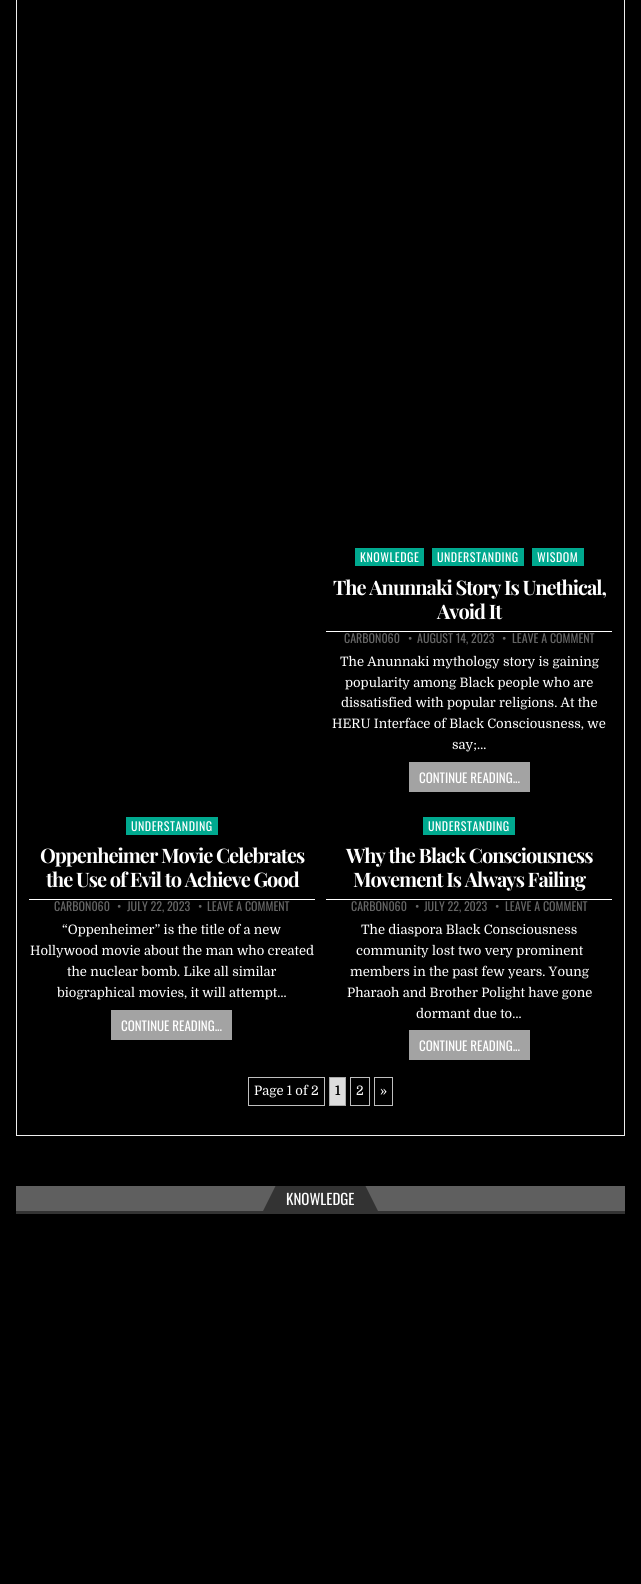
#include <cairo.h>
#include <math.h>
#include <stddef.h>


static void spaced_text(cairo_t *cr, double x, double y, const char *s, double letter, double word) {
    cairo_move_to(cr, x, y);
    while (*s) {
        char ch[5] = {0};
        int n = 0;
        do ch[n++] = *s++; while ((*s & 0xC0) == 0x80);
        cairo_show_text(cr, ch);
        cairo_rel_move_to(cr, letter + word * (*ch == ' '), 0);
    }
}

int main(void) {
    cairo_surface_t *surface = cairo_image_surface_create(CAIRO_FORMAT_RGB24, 641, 1584);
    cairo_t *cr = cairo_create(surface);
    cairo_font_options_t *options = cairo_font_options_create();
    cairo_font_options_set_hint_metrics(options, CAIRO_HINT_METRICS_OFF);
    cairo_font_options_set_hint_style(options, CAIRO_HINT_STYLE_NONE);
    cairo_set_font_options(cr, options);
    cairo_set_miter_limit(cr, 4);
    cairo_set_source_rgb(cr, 0, 0, 0);
    cairo_paint(cr);
    cairo_rectangle(cr, 16.5, -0.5, 608, 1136);
    cairo_set_source_rgb(cr, 0.933, 0.933, 0.933);
    cairo_set_line_width(cr, 1);
    cairo_stroke(cr);
    cairo_set_source_rgb(cr, 0, 0.663, 0.561);
    cairo_rectangle(cr, 355, 548, 69, 18);
    cairo_fill(cr);
    cairo_select_font_face(cr, "Oswald", CAIRO_FONT_SLANT_NORMAL, CAIRO_FONT_WEIGHT_NORMAL);
    cairo_set_font_size(cr, 12);
    cairo_set_source_rgb(cr, 1, 1, 1);
    spaced_text(cr, 360, 562, "KNOWLEDGE", 0.5, 0);
    cairo_set_source_rgb(cr, 0, 0.663, 0.561);
    cairo_rectangle(cr, 432, 548, 92, 18);
    cairo_fill(cr);
    cairo_set_source_rgb(cr, 1, 1, 1);
    spaced_text(cr, 437, 562, "UNDERSTANDING", 0.5, 0);
    cairo_set_source_rgb(cr, 0, 0.663, 0.561);
    cairo_rectangle(cr, 532, 548, 52, 18);
    cairo_fill(cr);
    cairo_set_source_rgb(cr, 1, 1, 1);
    spaced_text(cr, 537, 562, "WISDOM", 0.5, 0);
    cairo_select_font_face(cr, "Playfair Display", CAIRO_FONT_SLANT_NORMAL, CAIRO_FONT_WEIGHT_BOLD);
    cairo_set_font_size(cr, 20);
    spaced_text(cr, 333, 595, "The Anunnaki Story Is Unethical,", -1, 0);
    spaced_text(cr, 437, 619, "Avoid It", -1, 0);
    cairo_rectangle(cr, 326, 631, 286, 1);
    cairo_fill(cr);
    cairo_select_font_face(cr, "Oswald", CAIRO_FONT_SLANT_NORMAL, CAIRO_FONT_WEIGHT_NORMAL);
    cairo_set_font_size(cr, 12);
    cairo_set_source_rgb(cr, 0.4, 0.4, 0.4);
    cairo_move_to(cr, 344, 643);
    cairo_show_text(cr, "CARBON060");
    cairo_move_to(cr, 408, 643);
    cairo_show_text(cr, "•");
    cairo_move_to(cr, 417, 643);
    cairo_show_text(cr, "AUGUST 14, 2023");
    cairo_move_to(cr, 502, 643);
    cairo_show_text(cr, "•");
    cairo_move_to(cr, 512, 643);
    cairo_show_text(cr, "LEAVE A COMMENT");
    cairo_select_font_face(cr, "Domine", CAIRO_FONT_SLANT_NORMAL, CAIRO_FONT_WEIGHT_NORMAL);
    cairo_set_font_size(cr, 13);
    cairo_set_source_rgb(cr, 1, 1, 1);
    cairo_move_to(cr, 340, 666);
    cairo_show_text(cr, "The Anunnaki mythology story is gaining");
    cairo_move_to(cr, 345, 687);
    cairo_show_text(cr, "popularity among Black people who are");
    cairo_move_to(cr, 341, 707);
    cairo_show_text(cr, "dissatisfied with popular religions. At the");
    cairo_move_to(cr, 332, 728);
    cairo_show_text(cr, "HERU Interface of Black Consciousness, we");
    cairo_move_to(cr, 452, 749);
    cairo_show_text(cr, "say;…");
    cairo_set_source_rgb(cr, 0.639, 0.639, 0.639);
    cairo_rectangle(cr, 409, 762, 121, 30);
    cairo_fill(cr);
    cairo_select_font_face(cr, "Oswald", CAIRO_FONT_SLANT_NORMAL, CAIRO_FONT_WEIGHT_NORMAL);
    cairo_set_source_rgb(cr, 1, 1, 1);
    cairo_move_to(cr, 419, 783);
    cairo_show_text(cr, "CONTINUE READING...");
    cairo_set_source_rgb(cr, 0, 0.663, 0.561);
    cairo_rectangle(cr, 126, 817, 92, 18);
    cairo_fill(cr);
    cairo_set_font_size(cr, 12);
    cairo_set_source_rgb(cr, 1, 1, 1);
    spaced_text(cr, 131, 831, "UNDERSTANDING", 0.5, 0);
    cairo_select_font_face(cr, "Playfair Display", CAIRO_FONT_SLANT_NORMAL, CAIRO_FONT_WEIGHT_BOLD);
    cairo_set_font_size(cr, 20);
    spaced_text(cr, 40, 863, "Oppenheimer Movie Celebrates", -1, 0);
    spaced_text(cr, 46, 887, "the Use of Evil to Achieve Good", -1, 0);
    cairo_rectangle(cr, 29, 899, 286, 1);
    cairo_fill(cr);
    cairo_select_font_face(cr, "Oswald", CAIRO_FONT_SLANT_NORMAL, CAIRO_FONT_WEIGHT_NORMAL);
    cairo_set_font_size(cr, 12);
    cairo_set_source_rgb(cr, 0.4, 0.4, 0.4);
    cairo_move_to(cr, 54, 911);
    cairo_show_text(cr, "CARBON060");
    cairo_move_to(cr, 117, 911);
    cairo_show_text(cr, "•");
    cairo_move_to(cr, 127, 911);
    cairo_show_text(cr, "JULY 22, 2023");
    cairo_move_to(cr, 198, 911);
    cairo_show_text(cr, "•");
    cairo_move_to(cr, 207, 911);
    cairo_show_text(cr, "LEAVE A COMMENT");
    cairo_select_font_face(cr, "Domine", CAIRO_FONT_SLANT_NORMAL, CAIRO_FONT_WEIGHT_NORMAL);
    cairo_set_font_size(cr, 13);
    cairo_set_source_rgb(cr, 1, 1, 1);
    cairo_move_to(cr, 62, 934);
    cairo_show_text(cr, "“Oppenheimer” is the title of a new");
    cairo_move_to(cr, 30, 955);
    cairo_show_text(cr, "Hollywood movie about the man who created");
    cairo_move_to(cr, 67, 976);
    cairo_show_text(cr, "the nuclear bomb. Like all similar");
    cairo_move_to(cr, 57, 997);
    cairo_show_text(cr, "biographical movies, it will attempt…");
    cairo_set_source_rgb(cr, 0.639, 0.639, 0.639);
    cairo_rectangle(cr, 111, 1010, 121, 30);
    cairo_fill(cr);
    cairo_select_font_face(cr, "Oswald", CAIRO_FONT_SLANT_NORMAL, CAIRO_FONT_WEIGHT_NORMAL);
    cairo_set_source_rgb(cr, 1, 1, 1);
    cairo_move_to(cr, 121, 1031);
    cairo_show_text(cr, "CONTINUE READING...");
    cairo_set_source_rgb(cr, 0, 0.663, 0.561);
    cairo_rectangle(cr, 423, 817, 92, 18);
    cairo_fill(cr);
    cairo_set_font_size(cr, 12);
    cairo_set_source_rgb(cr, 1, 1, 1);
    spaced_text(cr, 428, 831, "UNDERSTANDING", 0.5, 0);
    cairo_select_font_face(cr, "Playfair Display", CAIRO_FONT_SLANT_NORMAL, CAIRO_FONT_WEIGHT_BOLD);
    cairo_set_font_size(cr, 20);
    spaced_text(cr, 346, 863, "Why the Black Consciousness", -1, 0);
    spaced_text(cr, 353, 887, "Movement Is Always Failing", -1, 0);
    cairo_rectangle(cr, 326, 899, 286, 1);
    cairo_fill(cr);
    cairo_select_font_face(cr, "Oswald", CAIRO_FONT_SLANT_NORMAL, CAIRO_FONT_WEIGHT_NORMAL);
    cairo_set_font_size(cr, 12);
    cairo_set_source_rgb(cr, 0.4, 0.4, 0.4);
    cairo_move_to(cr, 351, 911);
    cairo_show_text(cr, "CARBON060");
    cairo_move_to(cr, 415, 911);
    cairo_show_text(cr, "•");
    cairo_move_to(cr, 424, 911);
    cairo_show_text(cr, "JULY 22, 2023");
    cairo_move_to(cr, 495, 911);
    cairo_show_text(cr, "•");
    cairo_move_to(cr, 505, 911);
    cairo_show_text(cr, "LEAVE A COMMENT");
    cairo_select_font_face(cr, "Domine", CAIRO_FONT_SLANT_NORMAL, CAIRO_FONT_WEIGHT_NORMAL);
    cairo_set_font_size(cr, 13);
    cairo_set_source_rgb(cr, 1, 1, 1);
    cairo_move_to(cr, 361, 934);
    cairo_show_text(cr, "The diaspora Black Consciousness");
    cairo_move_to(cr, 356, 955);
    cairo_show_text(cr, "community lost two very prominent");
    cairo_move_to(cr, 350, 976);
    cairo_show_text(cr, "members in the past few years. Young");
    cairo_move_to(cr, 347, 997);
    cairo_show_text(cr, "Pharaoh and Brother Polight have gone");
    cairo_move_to(cr, 416, 1018);
    cairo_show_text(cr, "dormant due to…");
    cairo_set_source_rgb(cr, 0.639, 0.639, 0.639);
    cairo_rectangle(cr, 409, 1030, 121, 30);
    cairo_fill(cr);
    cairo_select_font_face(cr, "Oswald", CAIRO_FONT_SLANT_NORMAL, CAIRO_FONT_WEIGHT_NORMAL);
    cairo_set_source_rgb(cr, 1, 1, 1);
    cairo_move_to(cr, 419, 1051);
    cairo_show_text(cr, "CONTINUE READING...");
    cairo_rectangle(cr, 248.5, 1077.5, 76, 28);
    cairo_set_source_rgb(cr, 0.749, 0.749, 0.749);
    cairo_stroke(cr);
    cairo_select_font_face(cr, "Domine", CAIRO_FONT_SLANT_NORMAL, CAIRO_FONT_WEIGHT_NORMAL);
    cairo_set_source_rgb(cr, 1, 1, 1);
    cairo_move_to(cr, 254, 1095);
    cairo_show_text(cr, "Page 1 of 2");
    cairo_set_source_rgb(cr, 0.867, 0.867, 0.867);
    cairo_rectangle(cr, 329.5, 1077.5, 16, 28);
    cairo_fill_preserve(cr);
    cairo_set_source_rgb(cr, 0.667, 0.667, 0.667);
    cairo_stroke(cr);
    cairo_select_font_face(cr, "Domine", CAIRO_FONT_SLANT_NORMAL, CAIRO_FONT_WEIGHT_BOLD);
    cairo_set_source_rgb(cr, 0, 0, 0);
    cairo_move_to(cr, 335, 1095);
    cairo_show_text(cr, "1");
    cairo_rectangle(cr, 350.5, 1077.5, 19, 28);
    cairo_set_source_rgb(cr, 0.749, 0.749, 0.749);
    cairo_stroke(cr);
    cairo_select_font_face(cr, "Domine", CAIRO_FONT_SLANT_NORMAL, CAIRO_FONT_WEIGHT_NORMAL);
    cairo_set_source_rgb(cr, 1, 1, 1);
    cairo_move_to(cr, 356, 1095);
    cairo_show_text(cr, "2");
    cairo_rectangle(cr, 374.5, 1077.5, 18, 28);
    cairo_set_source_rgb(cr, 0.749, 0.749, 0.749);
    cairo_stroke(cr);
    cairo_set_source_rgb(cr, 1, 1, 1);
    cairo_move_to(cr, 380, 1095);
    cairo_show_text(cr, "»");
    cairo_set_source_rgb(cr, 0.373, 0.373, 0.373);
    cairo_rectangle(cr, 16, 1186, 609, 25);
    cairo_fill(cr);
    cairo_set_source_rgb(cr, 0.2, 0.2, 0.2);
    cairo_rectangle(cr, 16, 1211, 609, 3);
    cairo_fill(cr);
    cairo_rectangle(cr, 278, 1186, 85, 25);
    cairo_fill(cr);
    cairo_save(cr);
    cairo_rectangle(cr, 16, 1186, 609, 25);
    cairo_clip(cr);
    cairo_new_path(cr);
    cairo_move_to(cr, 278, 1181);
    cairo_line_to(cr, 278, 1211);
    cairo_line_to(cr, 263, 1211);
    cairo_close_path(cr);
    cairo_fill(cr);
    cairo_restore(cr);
    cairo_select_font_face(cr, "Oswald", CAIRO_FONT_SLANT_NORMAL, CAIRO_FONT_WEIGHT_NORMAL);
    cairo_set_font_size(cr, 15);
    cairo_set_source_rgb(cr, 1, 1, 1);
    cairo_move_to(cr, 286, 1205);
    cairo_show_text(cr, "KNOWLEDGE");
    cairo_save(cr);
    cairo_rectangle(cr, 16, 1186, 609, 25);
    cairo_clip(cr);
    cairo_set_source_rgb(cr, 0.2, 0.2, 0.2);
    cairo_new_path(cr);
    cairo_move_to(cr, 363, 1211);
    cairo_line_to(cr, 363, 1181);
    cairo_line_to(cr, 378, 1211);
    cairo_close_path(cr);
    cairo_fill(cr);
    cairo_restore(cr);
    cairo_surface_write_to_png(surface, "page.png");
    cairo_font_options_destroy(options);
    cairo_destroy(cr);
    cairo_surface_destroy(surface);
    return 0;
}
